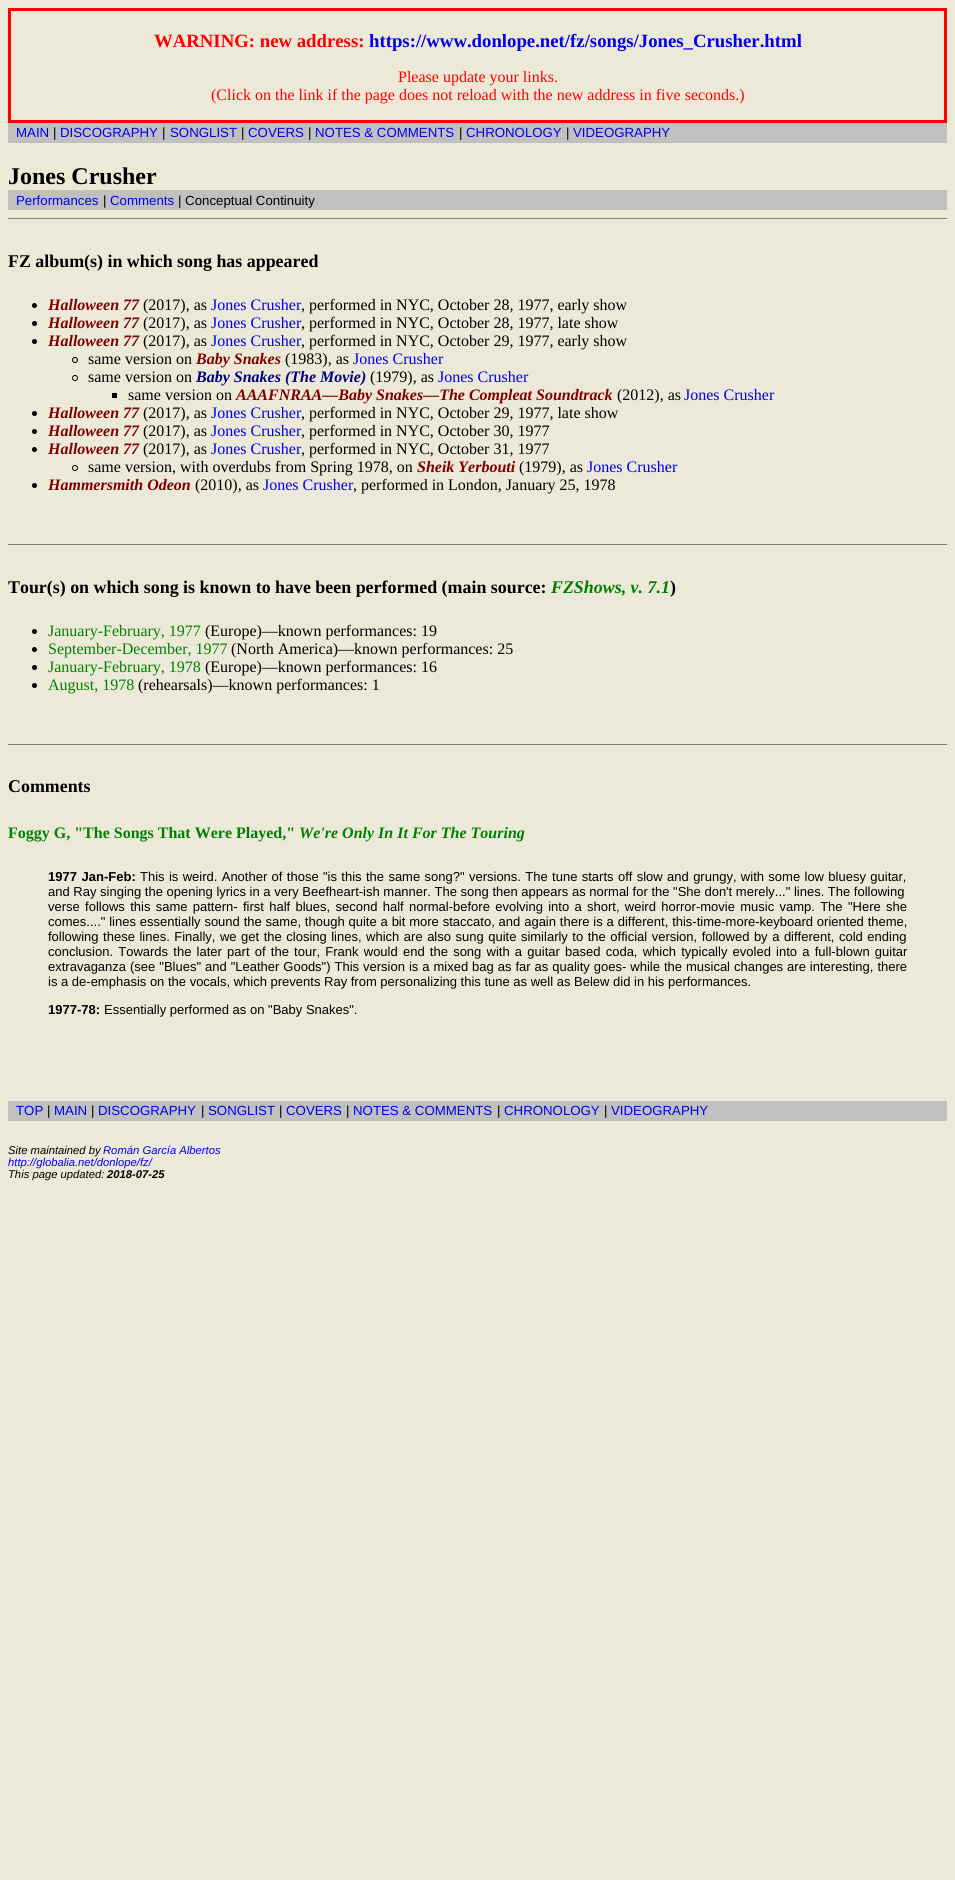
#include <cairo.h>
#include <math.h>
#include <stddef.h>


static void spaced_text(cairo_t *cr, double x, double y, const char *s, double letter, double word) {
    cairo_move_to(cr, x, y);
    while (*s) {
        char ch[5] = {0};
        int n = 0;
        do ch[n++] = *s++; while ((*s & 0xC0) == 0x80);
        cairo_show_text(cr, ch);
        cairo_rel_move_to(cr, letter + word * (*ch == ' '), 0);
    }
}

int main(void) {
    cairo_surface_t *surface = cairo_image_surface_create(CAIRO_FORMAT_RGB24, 955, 1880);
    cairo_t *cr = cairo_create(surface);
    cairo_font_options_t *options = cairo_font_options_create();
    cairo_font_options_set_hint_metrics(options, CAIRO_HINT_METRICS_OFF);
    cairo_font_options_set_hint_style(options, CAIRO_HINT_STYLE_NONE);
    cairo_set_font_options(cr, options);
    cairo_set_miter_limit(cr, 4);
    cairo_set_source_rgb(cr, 0.925, 0.914, 0.847);
    cairo_paint(cr);
    cairo_rectangle(cr, 9.5, 9.5, 936, 112);
    cairo_set_source_rgb(cr, 1, 0, 0);
    cairo_set_line_width(cr, 3);
    cairo_stroke(cr);
    cairo_select_font_face(cr, "Liberation Serif", CAIRO_FONT_SLANT_NORMAL, CAIRO_FONT_WEIGHT_BOLD);
    cairo_set_font_size(cr, 18.75);
    cairo_move_to(cr, 154, 47);
    cairo_show_text(cr, "WARNING: new address:");
    cairo_set_source_rgb(cr, 0, 0, 0.933);
    cairo_move_to(cr, 369, 47);
    cairo_show_text(cr, "https://www.donlope.net/fz/songs/Jones_Crusher.html");
    cairo_select_font_face(cr, "Liberation Serif", CAIRO_FONT_SLANT_NORMAL, CAIRO_FONT_WEIGHT_NORMAL);
    cairo_set_font_size(cr, 16);
    cairo_set_source_rgb(cr, 1, 0, 0);
    cairo_move_to(cr, 398, 82);
    cairo_show_text(cr, "Please update your links.");
    cairo_move_to(cr, 211, 100);
    cairo_show_text(cr, "(Click on the link if the page does not reload with the new address in five seconds.)");
    cairo_set_source_rgb(cr, 0.753, 0.753, 0.753);
    cairo_rectangle(cr, 8, 123, 939, 20);
    cairo_fill(cr);
    cairo_select_font_face(cr, "Liberation Sans", CAIRO_FONT_SLANT_NORMAL, CAIRO_FONT_WEIGHT_NORMAL);
    cairo_set_font_size(cr, 13.25);
    cairo_set_source_rgb(cr, 0, 0, 0.933);
    cairo_move_to(cr, 16, 137);
    cairo_show_text(cr, "MAIN");
    cairo_set_source_rgb(cr, 0, 0, 0);
    cairo_move_to(cr, 53, 137);
    cairo_show_text(cr, "|");
    cairo_set_source_rgb(cr, 0, 0, 0.933);
    cairo_move_to(cr, 60, 137);
    cairo_show_text(cr, "DISCOGRAPHY");
    cairo_set_source_rgb(cr, 0, 0, 0);
    cairo_move_to(cr, 162, 137);
    cairo_show_text(cr, "|");
    cairo_set_source_rgb(cr, 0, 0, 0.933);
    cairo_move_to(cr, 170, 137);
    cairo_show_text(cr, "SONGLIST");
    cairo_set_source_rgb(cr, 0, 0, 0);
    cairo_move_to(cr, 241, 137);
    cairo_show_text(cr, "|");
    cairo_set_source_rgb(cr, 0, 0, 0.933);
    cairo_move_to(cr, 248, 137);
    cairo_show_text(cr, "COVERS");
    cairo_set_source_rgb(cr, 0, 0, 0);
    cairo_move_to(cr, 308, 137);
    cairo_show_text(cr, "|");
    cairo_set_source_rgb(cr, 0, 0, 0.933);
    cairo_move_to(cr, 315, 137);
    cairo_show_text(cr, "NOTES & COMMENTS");
    cairo_set_source_rgb(cr, 0, 0, 0);
    cairo_move_to(cr, 459, 137);
    cairo_show_text(cr, "|");
    cairo_set_source_rgb(cr, 0, 0, 0.933);
    cairo_move_to(cr, 466, 137);
    cairo_show_text(cr, "CHRONOLOGY");
    cairo_set_source_rgb(cr, 0, 0, 0);
    cairo_move_to(cr, 566, 137);
    cairo_show_text(cr, "|");
    cairo_set_source_rgb(cr, 0, 0, 0.933);
    cairo_move_to(cr, 573, 137);
    cairo_show_text(cr, "VIDEOGRAPHY");
    cairo_select_font_face(cr, "Liberation Serif", CAIRO_FONT_SLANT_NORMAL, CAIRO_FONT_WEIGHT_BOLD);
    cairo_set_font_size(cr, 24);
    cairo_set_source_rgb(cr, 0, 0, 0);
    cairo_move_to(cr, 8, 184);
    cairo_show_text(cr, "Jones Crusher");
    cairo_set_source_rgb(cr, 0.753, 0.753, 0.753);
    cairo_rectangle(cr, 8, 190, 939, 20);
    cairo_fill(cr);
    cairo_select_font_face(cr, "Liberation Sans", CAIRO_FONT_SLANT_NORMAL, CAIRO_FONT_WEIGHT_NORMAL);
    cairo_set_font_size(cr, 13.25);
    cairo_set_source_rgb(cr, 0, 0, 0.933);
    cairo_move_to(cr, 16, 205);
    cairo_show_text(cr, "Performances");
    cairo_set_source_rgb(cr, 0, 0, 0);
    cairo_move_to(cr, 103, 205);
    cairo_show_text(cr, "|");
    cairo_set_source_rgb(cr, 0, 0, 0.933);
    cairo_move_to(cr, 110, 205);
    cairo_show_text(cr, "Comments");
    cairo_set_source_rgb(cr, 0, 0, 0);
    cairo_move_to(cr, 178, 205);
    cairo_show_text(cr, "| Conceptual Continuity");
    cairo_set_source_rgb(cr, 0.502, 0.502, 0.502);
    cairo_rectangle(cr, 8, 218, 939, 1);
    cairo_fill(cr);
    cairo_select_font_face(cr, "Liberation Serif", CAIRO_FONT_SLANT_NORMAL, CAIRO_FONT_WEIGHT_BOLD);
    cairo_set_font_size(cr, 17.9);
    cairo_set_source_rgb(cr, 0, 0, 0);
    cairo_move_to(cr, 8, 267);
    cairo_show_text(cr, "FZ album(s) in which song has appeared");
    cairo_new_path(cr);
    cairo_arc(cr, 34.5, 305.5, 2.5, 0, 2 * M_PI);
    cairo_fill(cr);
    cairo_select_font_face(cr, "Liberation Serif", CAIRO_FONT_SLANT_ITALIC, CAIRO_FONT_WEIGHT_BOLD);
    cairo_set_font_size(cr, 16);
    cairo_set_source_rgb(cr, 0.502, 0, 0);
    cairo_move_to(cr, 48, 310);
    cairo_show_text(cr, "Halloween 77");
    cairo_select_font_face(cr, "Liberation Serif", CAIRO_FONT_SLANT_NORMAL, CAIRO_FONT_WEIGHT_NORMAL);
    cairo_set_source_rgb(cr, 0, 0, 0);
    cairo_move_to(cr, 143, 310);
    cairo_show_text(cr, "(2017), as");
    cairo_set_source_rgb(cr, 0, 0, 0.933);
    cairo_move_to(cr, 211, 310);
    cairo_show_text(cr, "Jones Crusher");
    cairo_set_source_rgb(cr, 0, 0, 0);
    cairo_move_to(cr, 301, 310);
    cairo_show_text(cr, ", performed in NYC, October 28, 1977, early show");
    cairo_new_path(cr);
    cairo_arc(cr, 34.5, 323.5, 2.5, 0, 2 * M_PI);
    cairo_fill(cr);
    cairo_select_font_face(cr, "Liberation Serif", CAIRO_FONT_SLANT_ITALIC, CAIRO_FONT_WEIGHT_BOLD);
    cairo_set_source_rgb(cr, 0.502, 0, 0);
    cairo_move_to(cr, 48, 328);
    cairo_show_text(cr, "Halloween 77");
    cairo_select_font_face(cr, "Liberation Serif", CAIRO_FONT_SLANT_NORMAL, CAIRO_FONT_WEIGHT_NORMAL);
    cairo_set_source_rgb(cr, 0, 0, 0);
    cairo_move_to(cr, 143, 328);
    cairo_show_text(cr, "(2017), as");
    cairo_set_source_rgb(cr, 0, 0, 0.933);
    cairo_move_to(cr, 211, 328);
    cairo_show_text(cr, "Jones Crusher");
    cairo_set_source_rgb(cr, 0, 0, 0);
    cairo_move_to(cr, 301, 328);
    cairo_show_text(cr, ", performed in NYC, October 28, 1977, late show");
    cairo_new_path(cr);
    cairo_arc(cr, 34.5, 341.5, 2.5, 0, 2 * M_PI);
    cairo_fill(cr);
    cairo_select_font_face(cr, "Liberation Serif", CAIRO_FONT_SLANT_ITALIC, CAIRO_FONT_WEIGHT_BOLD);
    cairo_set_source_rgb(cr, 0.502, 0, 0);
    cairo_move_to(cr, 48, 346);
    cairo_show_text(cr, "Halloween 77");
    cairo_select_font_face(cr, "Liberation Serif", CAIRO_FONT_SLANT_NORMAL, CAIRO_FONT_WEIGHT_NORMAL);
    cairo_set_source_rgb(cr, 0, 0, 0);
    cairo_move_to(cr, 143, 346);
    cairo_show_text(cr, "(2017), as");
    cairo_set_source_rgb(cr, 0, 0, 0.933);
    cairo_move_to(cr, 211, 346);
    cairo_show_text(cr, "Jones Crusher");
    cairo_set_source_rgb(cr, 0, 0, 0);
    cairo_move_to(cr, 301, 346);
    cairo_show_text(cr, ", performed in NYC, October 29, 1977, early show");
    cairo_new_path(cr);
    cairo_arc(cr, 75, 360, 2.5, 0, 2 * M_PI);
    cairo_set_line_width(cr, 1);
    cairo_stroke(cr);
    cairo_move_to(cr, 88, 364);
    cairo_show_text(cr, "same version on");
    cairo_select_font_face(cr, "Liberation Serif", CAIRO_FONT_SLANT_ITALIC, CAIRO_FONT_WEIGHT_BOLD);
    cairo_set_source_rgb(cr, 0.502, 0, 0);
    cairo_move_to(cr, 196, 364);
    cairo_show_text(cr, "Baby Snakes");
    cairo_select_font_face(cr, "Liberation Serif", CAIRO_FONT_SLANT_NORMAL, CAIRO_FONT_WEIGHT_NORMAL);
    cairo_set_source_rgb(cr, 0, 0, 0);
    cairo_move_to(cr, 285, 364);
    cairo_show_text(cr, "(1983), as");
    cairo_set_source_rgb(cr, 0, 0, 0.933);
    cairo_move_to(cr, 353, 364);
    cairo_show_text(cr, "Jones Crusher");
    cairo_new_path(cr);
    cairo_arc(cr, 75, 378, 2.5, 0, 2 * M_PI);
    cairo_set_source_rgb(cr, 0, 0, 0);
    cairo_stroke(cr);
    cairo_move_to(cr, 88, 382);
    cairo_show_text(cr, "same version on");
    cairo_select_font_face(cr, "Liberation Serif", CAIRO_FONT_SLANT_ITALIC, CAIRO_FONT_WEIGHT_BOLD);
    cairo_set_source_rgb(cr, 0, 0, 0.502);
    cairo_move_to(cr, 196, 382);
    cairo_show_text(cr, "Baby Snakes (The Movie)");
    cairo_select_font_face(cr, "Liberation Serif", CAIRO_FONT_SLANT_NORMAL, CAIRO_FONT_WEIGHT_NORMAL);
    cairo_set_source_rgb(cr, 0, 0, 0);
    cairo_move_to(cr, 370, 382);
    cairo_show_text(cr, "(1979), as");
    cairo_set_source_rgb(cr, 0, 0, 0.933);
    cairo_move_to(cr, 438, 382);
    cairo_show_text(cr, "Jones Crusher");
    cairo_set_source_rgb(cr, 0, 0, 0);
    cairo_rectangle(cr, 112, 393, 5, 5);
    cairo_fill(cr);
    cairo_move_to(cr, 128, 400);
    cairo_show_text(cr, "same version on");
    cairo_select_font_face(cr, "Liberation Serif", CAIRO_FONT_SLANT_ITALIC, CAIRO_FONT_WEIGHT_BOLD);
    cairo_set_source_rgb(cr, 0.502, 0, 0);
    cairo_move_to(cr, 236, 400);
    cairo_show_text(cr, "AAAFNRAA—Baby Snakes—The Compleat Soundtrack");
    cairo_select_font_face(cr, "Liberation Serif", CAIRO_FONT_SLANT_NORMAL, CAIRO_FONT_WEIGHT_NORMAL);
    cairo_set_source_rgb(cr, 0, 0, 0);
    cairo_move_to(cr, 617, 400);
    cairo_show_text(cr, "(2012), as");
    cairo_set_source_rgb(cr, 0, 0, 0.933);
    cairo_move_to(cr, 684, 400);
    cairo_show_text(cr, "Jones Crusher");
    cairo_set_source_rgb(cr, 0, 0, 0);
    cairo_new_path(cr);
    cairo_arc(cr, 34.5, 413.5, 2.5, 0, 2 * M_PI);
    cairo_fill(cr);
    cairo_select_font_face(cr, "Liberation Serif", CAIRO_FONT_SLANT_ITALIC, CAIRO_FONT_WEIGHT_BOLD);
    cairo_set_source_rgb(cr, 0.502, 0, 0);
    cairo_move_to(cr, 48, 418);
    cairo_show_text(cr, "Halloween 77");
    cairo_select_font_face(cr, "Liberation Serif", CAIRO_FONT_SLANT_NORMAL, CAIRO_FONT_WEIGHT_NORMAL);
    cairo_set_source_rgb(cr, 0, 0, 0);
    cairo_move_to(cr, 143, 418);
    cairo_show_text(cr, "(2017), as");
    cairo_set_source_rgb(cr, 0, 0, 0.933);
    cairo_move_to(cr, 211, 418);
    cairo_show_text(cr, "Jones Crusher");
    cairo_set_source_rgb(cr, 0, 0, 0);
    cairo_move_to(cr, 301, 418);
    cairo_show_text(cr, ", performed in NYC, October 29, 1977, late show");
    cairo_new_path(cr);
    cairo_arc(cr, 34.5, 431.5, 2.5, 0, 2 * M_PI);
    cairo_fill(cr);
    cairo_select_font_face(cr, "Liberation Serif", CAIRO_FONT_SLANT_ITALIC, CAIRO_FONT_WEIGHT_BOLD);
    cairo_set_source_rgb(cr, 0.502, 0, 0);
    cairo_move_to(cr, 48, 436);
    cairo_show_text(cr, "Halloween 77");
    cairo_select_font_face(cr, "Liberation Serif", CAIRO_FONT_SLANT_NORMAL, CAIRO_FONT_WEIGHT_NORMAL);
    cairo_set_source_rgb(cr, 0, 0, 0);
    cairo_move_to(cr, 143, 436);
    cairo_show_text(cr, "(2017), as");
    cairo_set_source_rgb(cr, 0, 0, 0.933);
    cairo_move_to(cr, 211, 436);
    cairo_show_text(cr, "Jones Crusher");
    cairo_set_source_rgb(cr, 0, 0, 0);
    cairo_move_to(cr, 301, 436);
    cairo_show_text(cr, ", performed in NYC, October 30, 1977");
    cairo_new_path(cr);
    cairo_arc(cr, 34.5, 449.5, 2.5, 0, 2 * M_PI);
    cairo_fill(cr);
    cairo_select_font_face(cr, "Liberation Serif", CAIRO_FONT_SLANT_ITALIC, CAIRO_FONT_WEIGHT_BOLD);
    cairo_set_source_rgb(cr, 0.502, 0, 0);
    cairo_move_to(cr, 48, 454);
    cairo_show_text(cr, "Halloween 77");
    cairo_select_font_face(cr, "Liberation Serif", CAIRO_FONT_SLANT_NORMAL, CAIRO_FONT_WEIGHT_NORMAL);
    cairo_set_source_rgb(cr, 0, 0, 0);
    cairo_move_to(cr, 143, 454);
    cairo_show_text(cr, "(2017), as");
    cairo_set_source_rgb(cr, 0, 0, 0.933);
    cairo_move_to(cr, 211, 454);
    cairo_show_text(cr, "Jones Crusher");
    cairo_set_source_rgb(cr, 0, 0, 0);
    cairo_move_to(cr, 301, 454);
    cairo_show_text(cr, ", performed in NYC, October 31, 1977");
    cairo_new_path(cr);
    cairo_arc(cr, 75, 468, 2.5, 0, 2 * M_PI);
    cairo_stroke(cr);
    cairo_move_to(cr, 88, 472);
    cairo_show_text(cr, "same version, with overdubs from Spring 1978, on");
    cairo_select_font_face(cr, "Liberation Serif", CAIRO_FONT_SLANT_ITALIC, CAIRO_FONT_WEIGHT_BOLD);
    cairo_set_source_rgb(cr, 0.502, 0, 0);
    cairo_move_to(cr, 417, 472);
    cairo_show_text(cr, "Sheik Yerbouti");
    cairo_select_font_face(cr, "Liberation Serif", CAIRO_FONT_SLANT_NORMAL, CAIRO_FONT_WEIGHT_NORMAL);
    cairo_set_source_rgb(cr, 0, 0, 0);
    cairo_move_to(cr, 519, 472);
    cairo_show_text(cr, "(1979), as");
    cairo_set_source_rgb(cr, 0, 0, 0.933);
    cairo_move_to(cr, 587, 472);
    cairo_show_text(cr, "Jones Crusher");
    cairo_set_source_rgb(cr, 0, 0, 0);
    cairo_new_path(cr);
    cairo_arc(cr, 34.5, 485.5, 2.5, 0, 2 * M_PI);
    cairo_fill(cr);
    cairo_select_font_face(cr, "Liberation Serif", CAIRO_FONT_SLANT_ITALIC, CAIRO_FONT_WEIGHT_BOLD);
    cairo_set_source_rgb(cr, 0.502, 0, 0);
    cairo_move_to(cr, 48, 490);
    cairo_show_text(cr, "Hammersmith Odeon");
    cairo_select_font_face(cr, "Liberation Serif", CAIRO_FONT_SLANT_NORMAL, CAIRO_FONT_WEIGHT_NORMAL);
    cairo_set_source_rgb(cr, 0, 0, 0);
    cairo_move_to(cr, 195, 490);
    cairo_show_text(cr, "(2010), as");
    cairo_set_source_rgb(cr, 0, 0, 0.933);
    cairo_move_to(cr, 263, 490);
    cairo_show_text(cr, "Jones Crusher");
    cairo_set_source_rgb(cr, 0, 0, 0);
    cairo_move_to(cr, 353, 490);
    cairo_show_text(cr, ", performed in London, January 25, 1978");
    cairo_set_source_rgb(cr, 0.502, 0.502, 0.502);
    cairo_rectangle(cr, 8, 544, 939, 1);
    cairo_fill(cr);
    cairo_select_font_face(cr, "Liberation Serif", CAIRO_FONT_SLANT_NORMAL, CAIRO_FONT_WEIGHT_BOLD);
    cairo_set_font_size(cr, 17.9);
    cairo_set_source_rgb(cr, 0, 0, 0);
    cairo_move_to(cr, 8, 593);
    cairo_show_text(cr, "Tour(s) on which song is known to have been performed (main source:");
    cairo_select_font_face(cr, "Liberation Serif", CAIRO_FONT_SLANT_ITALIC, CAIRO_FONT_WEIGHT_BOLD);
    cairo_set_source_rgb(cr, 0, 0.502, 0);
    cairo_move_to(cr, 551, 593);
    cairo_show_text(cr, "FZShows, v. 7.1");
    cairo_select_font_face(cr, "Liberation Serif", CAIRO_FONT_SLANT_NORMAL, CAIRO_FONT_WEIGHT_BOLD);
    cairo_set_source_rgb(cr, 0, 0, 0);
    cairo_move_to(cr, 670, 593);
    cairo_show_text(cr, ")");
    cairo_new_path(cr);
    cairo_arc(cr, 34.5, 631.5, 2.5, 0, 2 * M_PI);
    cairo_fill(cr);
    cairo_select_font_face(cr, "Liberation Serif", CAIRO_FONT_SLANT_NORMAL, CAIRO_FONT_WEIGHT_NORMAL);
    cairo_set_font_size(cr, 16);
    cairo_set_source_rgb(cr, 0, 0.502, 0);
    cairo_move_to(cr, 48, 636);
    cairo_show_text(cr, "January-February, 1977");
    cairo_set_source_rgb(cr, 0, 0, 0);
    cairo_move_to(cr, 205, 636);
    cairo_show_text(cr, "(Europe)—known performances: 19");
    cairo_new_path(cr);
    cairo_arc(cr, 34.5, 649.5, 2.5, 0, 2 * M_PI);
    cairo_fill(cr);
    cairo_set_source_rgb(cr, 0, 0.502, 0);
    cairo_move_to(cr, 48, 654);
    cairo_show_text(cr, "September-December, 1977");
    cairo_set_source_rgb(cr, 0, 0, 0);
    cairo_move_to(cr, 231, 654);
    cairo_show_text(cr, "(North America)—known performances: 25");
    cairo_new_path(cr);
    cairo_arc(cr, 34.5, 667.5, 2.5, 0, 2 * M_PI);
    cairo_fill(cr);
    cairo_set_source_rgb(cr, 0, 0.502, 0);
    cairo_move_to(cr, 48, 672);
    cairo_show_text(cr, "January-February, 1978");
    cairo_set_source_rgb(cr, 0, 0, 0);
    cairo_move_to(cr, 205, 672);
    cairo_show_text(cr, "(Europe)—known performances: 16");
    cairo_new_path(cr);
    cairo_arc(cr, 34.5, 685.5, 2.5, 0, 2 * M_PI);
    cairo_fill(cr);
    cairo_set_source_rgb(cr, 0, 0.502, 0);
    cairo_move_to(cr, 48, 690);
    cairo_show_text(cr, "August, 1978");
    cairo_set_source_rgb(cr, 0, 0, 0);
    cairo_move_to(cr, 138, 690);
    cairo_show_text(cr, "(rehearsals)—known performances: 1");
    cairo_set_source_rgb(cr, 0.502, 0.502, 0.502);
    cairo_rectangle(cr, 8, 744, 939, 1);
    cairo_fill(cr);
    cairo_select_font_face(cr, "Liberation Serif", CAIRO_FONT_SLANT_NORMAL, CAIRO_FONT_WEIGHT_BOLD);
    cairo_set_font_size(cr, 17.9);
    cairo_set_source_rgb(cr, 0, 0, 0);
    cairo_move_to(cr, 8, 792);
    cairo_show_text(cr, "Comments");
    cairo_set_font_size(cr, 16);
    cairo_set_source_rgb(cr, 0, 0.502, 0);
    cairo_move_to(cr, 8, 838);
    cairo_show_text(cr, "Foggy G, \"The Songs That Were Played,\"");
    cairo_select_font_face(cr, "Liberation Serif", CAIRO_FONT_SLANT_ITALIC, CAIRO_FONT_WEIGHT_BOLD);
    cairo_move_to(cr, 299, 838);
    cairo_show_text(cr, "We're Only In It For The Touring");
    cairo_select_font_face(cr, "Liberation Sans", CAIRO_FONT_SLANT_NORMAL, CAIRO_FONT_WEIGHT_BOLD);
    cairo_set_font_size(cr, 13);
    cairo_set_source_rgb(cr, 0, 0, 0);
    spaced_text(cr, 48, 881, "1977 Jan-Feb:", 0, 1);
    cairo_select_font_face(cr, "Liberation Sans", CAIRO_FONT_SLANT_NORMAL, CAIRO_FONT_WEIGHT_NORMAL);
    spaced_text(cr, 140, 881, "This is weird. Another of those \"is this the same song?\" versions. The tune starts off slow and grungy, with some low bluesy guitar,", 0, 0.75);
    cairo_move_to(cr, 48, 896);
    cairo_show_text(cr, "and Ray singing the opening lyrics in a very Beefheart-ish manner. The song then appears as normal for the \"She don't merely...\" lines. The following");
    spaced_text(cr, 48, 911, "verse follows this same pattern- first half blues, second half normal-before evolving into a short, weird horror-movie music vamp. The \"Here she", 0, 1.7);
    spaced_text(cr, 48, 926, "comes....\" lines essentially sound the same, though quite a bit more staccato, and again there is a different, this-time-more-keyboard oriented theme,", 0, 0.25);
    spaced_text(cr, 48, 941, "following these lines. Finally, we get the closing lines, which are also sung quite similarly to the official version, followed by a different, cold ending", 0, 0.9);
    spaced_text(cr, 48, 956, "conclusion. Towards the later part of the tour, Frank would end the song with a guitar based coda, which typically evoled into a full-blown guitar", 0, 1.6);
    spaced_text(cr, 48, 971, "extravaganza (see \"Blues\" and \"Leather Goods\") This version is a mixed bag as far as quality goes- while the musical changes are interesting, there", 0, 0.35);
    cairo_move_to(cr, 48, 986);
    cairo_show_text(cr, "is a de-emphasis on the vocals, which prevents Ray from personalizing this tune as well as Belew did in his performances.");
    cairo_select_font_face(cr, "Liberation Sans", CAIRO_FONT_SLANT_NORMAL, CAIRO_FONT_WEIGHT_BOLD);
    cairo_move_to(cr, 48, 1014);
    cairo_show_text(cr, "1977-78:");
    cairo_select_font_face(cr, "Liberation Sans", CAIRO_FONT_SLANT_NORMAL, CAIRO_FONT_WEIGHT_NORMAL);
    cairo_move_to(cr, 104, 1014);
    cairo_show_text(cr, "Essentially performed as on \"Baby Snakes\".");
    cairo_set_source_rgb(cr, 0.753, 0.753, 0.753);
    cairo_rectangle(cr, 8, 1101, 939, 20);
    cairo_fill(cr);
    cairo_set_font_size(cr, 13.25);
    cairo_set_source_rgb(cr, 0, 0, 0.933);
    cairo_move_to(cr, 16, 1115);
    cairo_show_text(cr, "TOP");
    cairo_set_source_rgb(cr, 0, 0, 0);
    cairo_move_to(cr, 47, 1115);
    cairo_show_text(cr, "|");
    cairo_set_source_rgb(cr, 0, 0, 0.933);
    cairo_move_to(cr, 54, 1115);
    cairo_show_text(cr, "MAIN");
    cairo_set_source_rgb(cr, 0, 0, 0);
    cairo_move_to(cr, 91, 1115);
    cairo_show_text(cr, "|");
    cairo_set_source_rgb(cr, 0, 0, 0.933);
    cairo_move_to(cr, 98, 1115);
    cairo_show_text(cr, "DISCOGRAPHY");
    cairo_set_source_rgb(cr, 0, 0, 0);
    cairo_move_to(cr, 201, 1115);
    cairo_show_text(cr, "|");
    cairo_set_source_rgb(cr, 0, 0, 0.933);
    cairo_move_to(cr, 208, 1115);
    cairo_show_text(cr, "SONGLIST");
    cairo_set_source_rgb(cr, 0, 0, 0);
    cairo_move_to(cr, 279, 1115);
    cairo_show_text(cr, "|");
    cairo_set_source_rgb(cr, 0, 0, 0.933);
    cairo_move_to(cr, 286, 1115);
    cairo_show_text(cr, "COVERS");
    cairo_set_source_rgb(cr, 0, 0, 0);
    cairo_move_to(cr, 346, 1115);
    cairo_show_text(cr, "|");
    cairo_set_source_rgb(cr, 0, 0, 0.933);
    cairo_move_to(cr, 353, 1115);
    cairo_show_text(cr, "NOTES & COMMENTS");
    cairo_set_source_rgb(cr, 0, 0, 0);
    cairo_move_to(cr, 497, 1115);
    cairo_show_text(cr, "|");
    cairo_set_source_rgb(cr, 0, 0, 0.933);
    cairo_move_to(cr, 504, 1115);
    cairo_show_text(cr, "CHRONOLOGY");
    cairo_set_source_rgb(cr, 0, 0, 0);
    cairo_move_to(cr, 604, 1115);
    cairo_show_text(cr, "|");
    cairo_set_source_rgb(cr, 0, 0, 0.933);
    cairo_move_to(cr, 611, 1115);
    cairo_show_text(cr, "VIDEOGRAPHY");
    cairo_select_font_face(cr, "Liberation Sans", CAIRO_FONT_SLANT_ITALIC, CAIRO_FONT_WEIGHT_NORMAL);
    cairo_set_font_size(cr, 11.25);
    cairo_set_source_rgb(cr, 0, 0, 0);
    cairo_move_to(cr, 8, 1154);
    cairo_show_text(cr, "Site maintained by");
    cairo_set_source_rgb(cr, 0, 0, 0.933);
    cairo_move_to(cr, 103, 1154);
    cairo_show_text(cr, "Román García Albertos");
    cairo_move_to(cr, 8, 1166);
    cairo_show_text(cr, "http://globalia.net/donlope/fz/");
    cairo_set_source_rgb(cr, 0, 0, 0);
    cairo_move_to(cr, 8, 1178);
    cairo_show_text(cr, "This page updated:");
    cairo_select_font_face(cr, "Liberation Sans", CAIRO_FONT_SLANT_ITALIC, CAIRO_FONT_WEIGHT_BOLD);
    cairo_move_to(cr, 107, 1178);
    cairo_show_text(cr, "2018-07-25");
    cairo_surface_write_to_png(surface, "page.png");
    cairo_font_options_destroy(options);
    cairo_destroy(cr);
    cairo_surface_destroy(surface);
    return 0;
}
